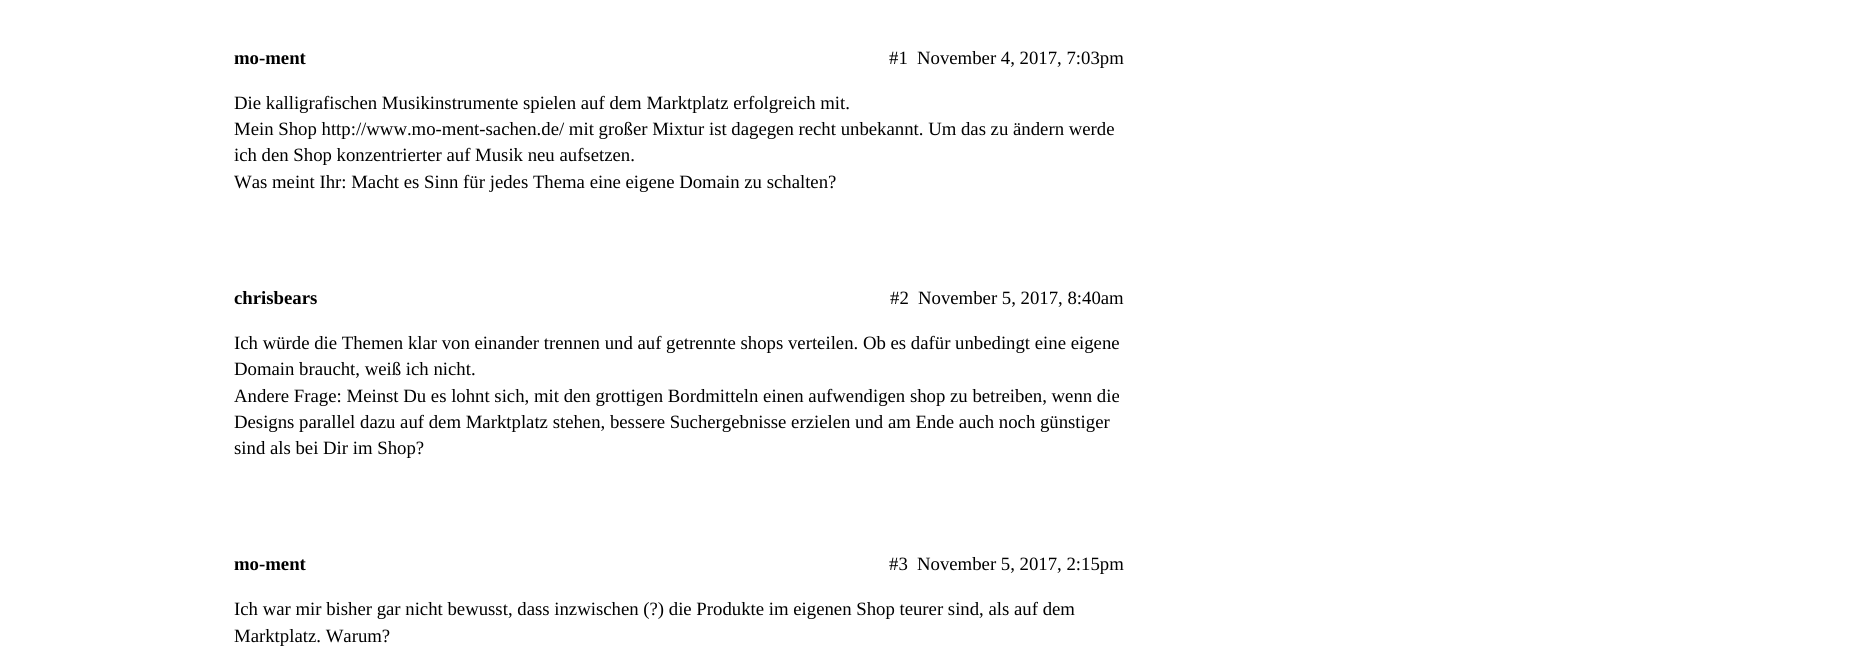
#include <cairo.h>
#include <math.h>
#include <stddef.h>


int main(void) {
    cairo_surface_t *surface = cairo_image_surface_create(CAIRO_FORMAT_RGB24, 1854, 658);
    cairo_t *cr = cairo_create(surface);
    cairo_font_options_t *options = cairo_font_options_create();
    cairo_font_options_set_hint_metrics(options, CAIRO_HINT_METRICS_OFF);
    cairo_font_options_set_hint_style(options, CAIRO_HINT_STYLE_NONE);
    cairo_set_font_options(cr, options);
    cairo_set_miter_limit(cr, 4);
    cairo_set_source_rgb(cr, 1, 1, 1);
    cairo_paint(cr);
    cairo_select_font_face(cr, "Liberation Serif", CAIRO_FONT_SLANT_NORMAL, CAIRO_FONT_WEIGHT_BOLD);
    cairo_set_font_size(cr, 18.75);
    cairo_set_source_rgb(cr, 0, 0, 0);
    cairo_move_to(cr, 234, 64);
    cairo_show_text(cr, "mo-ment");
    cairo_select_font_face(cr, "Liberation Serif", CAIRO_FONT_SLANT_NORMAL, CAIRO_FONT_WEIGHT_NORMAL);
    cairo_move_to(cr, 889, 64);
    cairo_show_text(cr, "#1");
    cairo_move_to(cr, 917, 64);
    cairo_show_text(cr, "November 4, 2017, 7:03pm");
    cairo_move_to(cr, 234, 109);
    cairo_show_text(cr, "Die kalligrafischen Musikinstrumente spielen auf dem Marktplatz erfolgreich mit.");
    cairo_move_to(cr, 234, 135);
    cairo_show_text(cr, "Mein Shop http://www.mo-ment-sachen.de/ mit großer Mixtur ist dagegen recht unbekannt. Um das zu ändern werde");
    cairo_move_to(cr, 234, 161);
    cairo_show_text(cr, "ich den Shop konzentrierter auf Musik neu aufsetzen.");
    cairo_move_to(cr, 234, 188);
    cairo_show_text(cr, "Was meint Ihr: Macht es Sinn für jedes Thema eine eigene Domain zu schalten?");
    cairo_select_font_face(cr, "Liberation Serif", CAIRO_FONT_SLANT_NORMAL, CAIRO_FONT_WEIGHT_BOLD);
    cairo_move_to(cr, 234, 304);
    cairo_show_text(cr, "chrisbears");
    cairo_select_font_face(cr, "Liberation Serif", CAIRO_FONT_SLANT_NORMAL, CAIRO_FONT_WEIGHT_NORMAL);
    cairo_move_to(cr, 890, 304);
    cairo_show_text(cr, "#2");
    cairo_move_to(cr, 918, 304);
    cairo_show_text(cr, "November 5, 2017, 8:40am");
    cairo_move_to(cr, 234, 349);
    cairo_show_text(cr, "Ich würde die Themen klar von einander trennen und auf getrennte shops verteilen. Ob es dafür unbedingt eine eigene");
    cairo_move_to(cr, 234, 375);
    cairo_show_text(cr, "Domain braucht, weiß ich nicht.");
    cairo_move_to(cr, 234, 402);
    cairo_show_text(cr, "Andere Frage: Meinst Du es lohnt sich, mit den grottigen Bordmitteln einen aufwendigen shop zu betreiben, wenn die");
    cairo_move_to(cr, 234, 428);
    cairo_show_text(cr, "Designs parallel dazu auf dem Marktplatz stehen, bessere Suchergebnisse erzielen und am Ende auch noch günstiger");
    cairo_move_to(cr, 234, 454);
    cairo_show_text(cr, "sind als bei Dir im Shop?");
    cairo_select_font_face(cr, "Liberation Serif", CAIRO_FONT_SLANT_NORMAL, CAIRO_FONT_WEIGHT_BOLD);
    cairo_move_to(cr, 234, 570);
    cairo_show_text(cr, "mo-ment");
    cairo_select_font_face(cr, "Liberation Serif", CAIRO_FONT_SLANT_NORMAL, CAIRO_FONT_WEIGHT_NORMAL);
    cairo_move_to(cr, 889, 570);
    cairo_show_text(cr, "#3");
    cairo_move_to(cr, 917, 570);
    cairo_show_text(cr, "November 5, 2017, 2:15pm");
    cairo_move_to(cr, 234, 615);
    cairo_show_text(cr, "Ich war mir bisher gar nicht bewusst, dass inzwischen (?) die Produkte im eigenen Shop teurer sind, als auf dem");
    cairo_move_to(cr, 234, 642);
    cairo_show_text(cr, "Marktplatz. Warum?");
    cairo_surface_write_to_png(surface, "page.png");
    cairo_font_options_destroy(options);
    cairo_destroy(cr);
    cairo_surface_destroy(surface);
    return 0;
}
